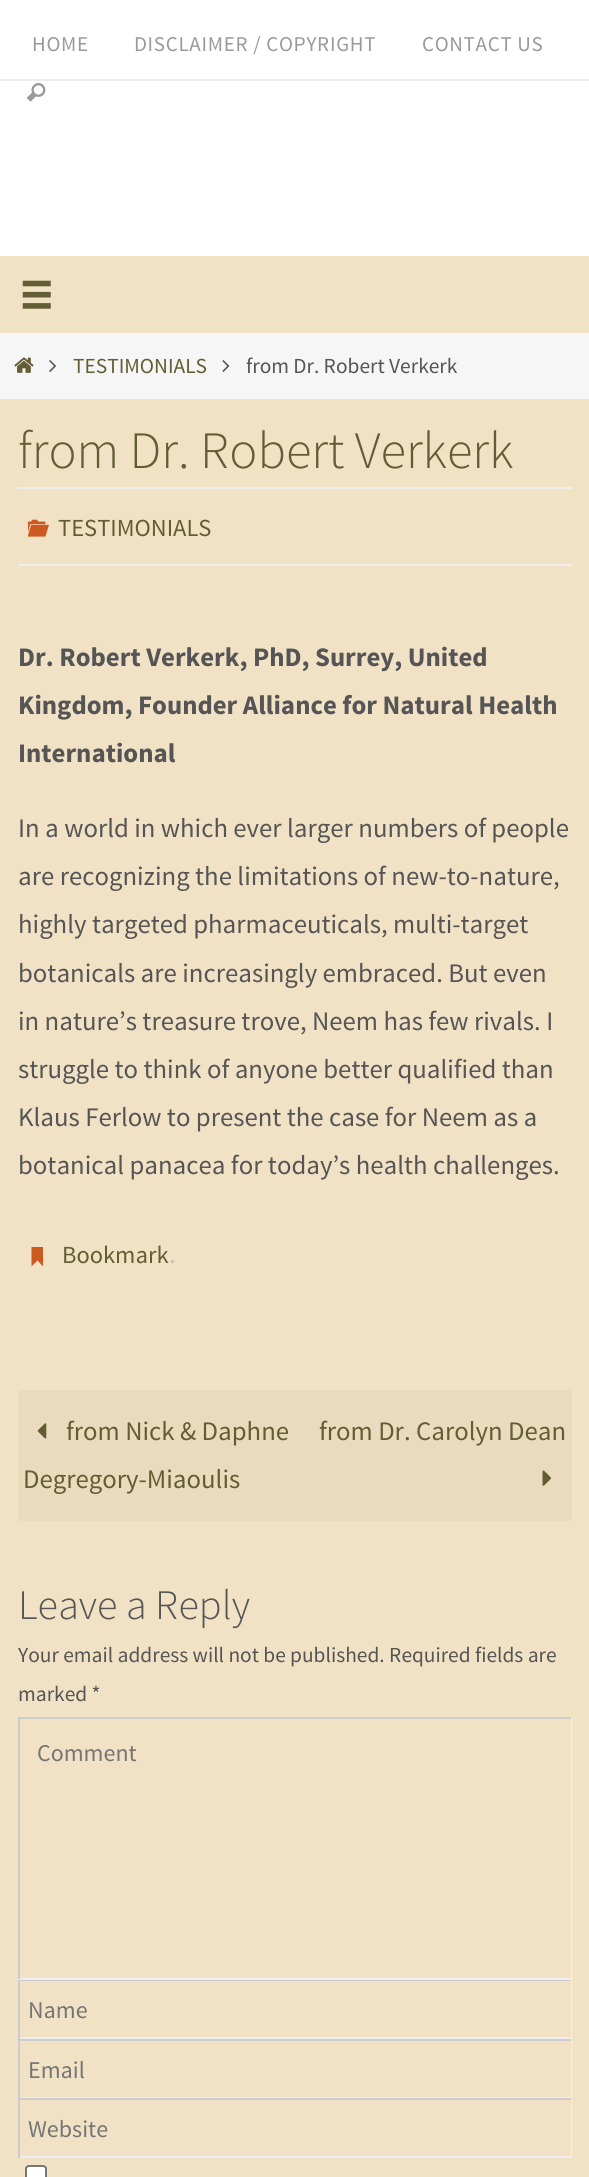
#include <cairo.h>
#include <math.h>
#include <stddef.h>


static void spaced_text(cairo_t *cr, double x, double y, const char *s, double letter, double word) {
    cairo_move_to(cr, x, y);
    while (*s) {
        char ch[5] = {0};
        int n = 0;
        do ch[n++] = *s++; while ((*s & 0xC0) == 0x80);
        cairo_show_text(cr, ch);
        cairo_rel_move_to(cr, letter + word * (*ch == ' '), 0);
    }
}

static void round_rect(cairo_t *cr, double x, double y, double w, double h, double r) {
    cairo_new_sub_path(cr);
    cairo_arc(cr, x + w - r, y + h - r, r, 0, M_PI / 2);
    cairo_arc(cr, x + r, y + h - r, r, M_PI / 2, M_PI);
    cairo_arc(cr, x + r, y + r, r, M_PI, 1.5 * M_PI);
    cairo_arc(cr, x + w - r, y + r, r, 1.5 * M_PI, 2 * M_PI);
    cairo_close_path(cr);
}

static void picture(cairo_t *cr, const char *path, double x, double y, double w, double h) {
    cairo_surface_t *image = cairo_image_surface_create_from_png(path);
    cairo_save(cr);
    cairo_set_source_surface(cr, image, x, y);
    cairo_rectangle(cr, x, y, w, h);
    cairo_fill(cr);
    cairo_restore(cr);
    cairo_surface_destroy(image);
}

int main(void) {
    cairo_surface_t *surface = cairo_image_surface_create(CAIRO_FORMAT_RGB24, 589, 2177);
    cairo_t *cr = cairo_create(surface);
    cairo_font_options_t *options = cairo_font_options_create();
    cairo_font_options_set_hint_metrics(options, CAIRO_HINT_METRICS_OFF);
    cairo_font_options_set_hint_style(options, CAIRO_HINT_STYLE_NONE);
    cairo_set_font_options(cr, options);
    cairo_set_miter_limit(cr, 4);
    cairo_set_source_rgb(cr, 1, 1, 1);
    cairo_paint(cr);
    cairo_set_source_rgb(cr, 0.922, 0.922, 0.922);
    cairo_rectangle(cr, 0, 79, 589, 2);
    cairo_fill(cr);
    cairo_select_font_face(cr, "Source Sans Pro", CAIRO_FONT_SLANT_NORMAL, CAIRO_FONT_WEIGHT_NORMAL);
    cairo_set_font_size(cr, 21);
    cairo_set_source_rgb(cr, 0.6, 0.6, 0.6);
    spaced_text(cr, 32, 51, "HOME", 0.7, 0);
    spaced_text(cr, 134, 51, "DISCLAIMER / COPYRIGHT", 0.7, 0);
    spaced_text(cr, 422, 51, "CONTACT US", 0.7, 0);
    picture(cr, "img1.png", 26, 83, 20, 19);
    cairo_set_source_rgb(cr, 0.945, 0.886, 0.773);
    cairo_rectangle(cr, 0, 256, 589, 77);
    cairo_fill(cr);
    picture(cr, "img2.png", 22, 280, 29, 29);
    cairo_set_source_rgb(cr, 0.961, 0.961, 0.961);
    cairo_rectangle(cr, 0, 333, 589, 66);
    cairo_fill(cr);
    picture(cr, "img3.png", 14, 357, 20, 16);
    picture(cr, "img4.png", 49, 360, 7, 12);
    cairo_set_font_size(cr, 21.4);
    cairo_set_source_rgb(cr, 0.384, 0.365, 0.2);
    cairo_move_to(cr, 73, 373);
    cairo_show_text(cr, "TESTIMONIALS");
    picture(cr, "img5.png", 222, 360, 8, 12);
    cairo_set_source_rgb(cr, 0.333, 0.333, 0.333);
    cairo_move_to(cr, 246, 373);
    cairo_show_text(cr, "from Dr. Robert Verkerk");
    cairo_set_source_rgb(cr, 0.945, 0.886, 0.773);
    cairo_rectangle(cr, 0, 399, 589, 1778);
    cairo_fill(cr);
    cairo_select_font_face(cr, "Source Sans Pro Light", CAIRO_FONT_SLANT_NORMAL, CAIRO_FONT_WEIGHT_NORMAL);
    cairo_set_font_size(cr, 52.5);
    cairo_set_source_rgb(cr, 0.384, 0.365, 0.2);
    cairo_move_to(cr, 18, 468);
    cairo_show_text(cr, "from Dr. Robert Verkerk");
    cairo_set_source_rgb(cr, 0.933, 0.933, 0.933);
    cairo_rectangle(cr, 18, 487, 554, 2);
    cairo_fill(cr);
    cairo_rectangle(cr, 18, 564, 554, 2);
    cairo_fill(cr);
    picture(cr, "img6.png", 28, 519, 21, 18);
    cairo_select_font_face(cr, "Source Sans Pro", CAIRO_FONT_SLANT_NORMAL, CAIRO_FONT_WEIGHT_NORMAL);
    cairo_set_font_size(cr, 24.5);
    cairo_set_source_rgb(cr, 0.384, 0.365, 0.2);
    cairo_move_to(cr, 58, 536);
    cairo_show_text(cr, "TESTIMONIALS");
    cairo_select_font_face(cr, "Source Sans Pro", CAIRO_FONT_SLANT_NORMAL, CAIRO_FONT_WEIGHT_BOLD);
    cairo_set_font_size(cr, 26.75);
    cairo_set_source_rgb(cr, 0.333, 0.333, 0.333);
    cairo_move_to(cr, 18, 666);
    cairo_show_text(cr, "Dr. Robert Verkerk, PhD, Surrey, United");
    cairo_move_to(cr, 18, 714);
    cairo_show_text(cr, "Kingdom, Founder Alliance for Natural Health");
    cairo_move_to(cr, 18, 762);
    cairo_show_text(cr, "International");
    cairo_select_font_face(cr, "Source Sans Pro", CAIRO_FONT_SLANT_NORMAL, CAIRO_FONT_WEIGHT_NORMAL);
    cairo_move_to(cr, 18, 837);
    cairo_show_text(cr, "In a world in which ever larger numbers of people");
    cairo_move_to(cr, 18, 885);
    cairo_show_text(cr, "are recognizing the limitations of new-to-nature,");
    cairo_move_to(cr, 18, 933);
    cairo_show_text(cr, "highly targeted pharmaceuticals, multi-target");
    cairo_move_to(cr, 18, 982);
    cairo_show_text(cr, "botanicals are increasingly embraced. But even");
    cairo_move_to(cr, 18, 1030);
    cairo_show_text(cr, "in nature’s treasure trove, Neem has few rivals. I");
    cairo_move_to(cr, 18, 1078);
    cairo_show_text(cr, "struggle to think of anyone better qualified than");
    cairo_move_to(cr, 18, 1126);
    cairo_show_text(cr, "Klaus Ferlow to present the case for Neem as a");
    cairo_move_to(cr, 18, 1174);
    cairo_show_text(cr, "botanical panacea for today’s health challenges.");
    cairo_set_source_rgb(cr, 0.796, 0.349, 0.125);
    cairo_new_path(cr);
    cairo_move_to(cr, 31.5, 1264.5);
    cairo_line_to(cr, 31.5, 1247);
    cairo_line_to(cr, 43, 1247);
    cairo_line_to(cr, 43, 1266.5);
    cairo_line_to(cr, 37.5, 1260.5);
    cairo_line_to(cr, 31.5, 1266.5);
    cairo_close_path(cr);
    cairo_fill(cr);
    cairo_set_font_size(cr, 24.5);
    cairo_set_source_rgb(cr, 0.384, 0.365, 0.2);
    cairo_move_to(cr, 62, 1263);
    cairo_show_text(cr, "Bookmark");
    cairo_set_font_size(cr, 28);
    cairo_set_source_rgb(cr, 0.757, 0.757, 0.757);
    cairo_move_to(cr, 169, 1263);
    cairo_show_text(cr, ".");
    cairo_set_source_rgb(cr, 0.918, 0.859, 0.745);
    cairo_rectangle(cr, 18, 1390, 554, 131);
    cairo_fill(cr);
    picture(cr, "img7.png", 37, 1423, 10, 16);
    cairo_set_font_size(cr, 26.75);
    cairo_set_source_rgb(cr, 0.384, 0.365, 0.2);
    cairo_move_to(cr, 66, 1440);
    cairo_show_text(cr, "from Nick & Daphne");
    cairo_move_to(cr, 23, 1488);
    cairo_show_text(cr, "Degregory-Miaoulis");
    cairo_move_to(cr, 319, 1440);
    cairo_show_text(cr, "from Dr. Carolyn Dean");
    picture(cr, "img8.png", 542, 1470, 9, 16);
    cairo_select_font_face(cr, "Source Sans Pro Light", CAIRO_FONT_SLANT_NORMAL, CAIRO_FONT_WEIGHT_NORMAL);
    cairo_set_font_size(cr, 42);
    cairo_set_source_rgb(cr, 0.333, 0.333, 0.333);
    cairo_move_to(cr, 18, 1619);
    cairo_show_text(cr, "Leave a Reply");
    cairo_select_font_face(cr, "Source Sans Pro", CAIRO_FONT_SLANT_NORMAL, CAIRO_FONT_WEIGHT_NORMAL);
    cairo_set_font_size(cr, 21.4);
    cairo_move_to(cr, 18, 1662);
    cairo_show_text(cr, "Your email address will not be published. Required fields are");
    cairo_move_to(cr, 18, 1701);
    cairo_show_text(cr, "marked *");
    cairo_set_source_rgb(cr, 0.8, 0.8, 0.8);
    cairo_rectangle(cr, 18, 1717, 554, 2);
    cairo_fill(cr);
    cairo_set_source_rgb(cr, 0.933, 0.933, 0.933);
    cairo_rectangle(cr, 571, 1717, 1, 262);
    cairo_fill(cr);
    cairo_set_source_rgb(cr, 0.8, 0.8, 0.8);
    cairo_rectangle(cr, 18, 1980, 554, 1);
    cairo_fill(cr);
    cairo_set_source_rgb(cr, 0.933, 0.933, 0.933);
    cairo_rectangle(cr, 571, 1979, 1, 60);
    cairo_fill(cr);
    cairo_rectangle(cr, 18, 2037, 554, 2);
    cairo_fill(cr);
    cairo_set_source_rgb(cr, 0.8, 0.8, 0.8);
    cairo_rectangle(cr, 18, 1979, 2, 60);
    cairo_fill(cr);
    cairo_set_source_rgb(cr, 0.933, 0.933, 0.933);
    cairo_rectangle(cr, 18, 1978, 554, 2);
    cairo_fill(cr);
    cairo_set_source_rgb(cr, 0.8, 0.8, 0.8);
    cairo_rectangle(cr, 18, 1717, 2, 262);
    cairo_fill(cr);
    cairo_set_font_size(cr, 24);
    cairo_set_source_rgb(cr, 0.459, 0.459, 0.459);
    cairo_move_to(cr, 37, 1761);
    cairo_show_text(cr, "Comment");
    cairo_move_to(cr, 28, 2018);
    cairo_show_text(cr, "Name");
    cairo_set_source_rgb(cr, 0.8, 0.8, 0.8);
    cairo_rectangle(cr, 18, 2039, 554, 2);
    cairo_fill(cr);
    cairo_set_source_rgb(cr, 0.933, 0.933, 0.933);
    cairo_rectangle(cr, 571, 2039, 1, 59);
    cairo_fill(cr);
    cairo_rectangle(cr, 18, 2097, 554, 1);
    cairo_fill(cr);
    cairo_set_source_rgb(cr, 0.8, 0.8, 0.8);
    cairo_rectangle(cr, 18, 2039, 2, 59);
    cairo_fill(cr);
    cairo_set_source_rgb(cr, 0.459, 0.459, 0.459);
    cairo_move_to(cr, 28, 2078);
    cairo_show_text(cr, "Email");
    cairo_set_source_rgb(cr, 0.8, 0.8, 0.8);
    cairo_rectangle(cr, 18, 2098, 554, 2);
    cairo_fill(cr);
    cairo_set_source_rgb(cr, 0.933, 0.933, 0.933);
    cairo_rectangle(cr, 571, 2098, 1, 60);
    cairo_fill(cr);
    cairo_rectangle(cr, 18, 2156, 554, 2);
    cairo_fill(cr);
    cairo_set_source_rgb(cr, 0.8, 0.8, 0.8);
    cairo_rectangle(cr, 18, 2098, 2, 60);
    cairo_fill(cr);
    cairo_set_source_rgb(cr, 0.459, 0.459, 0.459);
    cairo_move_to(cr, 28, 2137);
    cairo_show_text(cr, "Website");
    cairo_set_source_rgb(cr, 1, 1, 1);
    round_rect(cr, 26, 2166, 20, 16, 3);
    cairo_fill_preserve(cr);
    cairo_set_source_rgb(cr, 0.463, 0.463, 0.463);
    cairo_stroke(cr);
    cairo_surface_write_to_png(surface, "page.png");
    cairo_font_options_destroy(options);
    cairo_destroy(cr);
    cairo_surface_destroy(surface);
    return 0;
}
